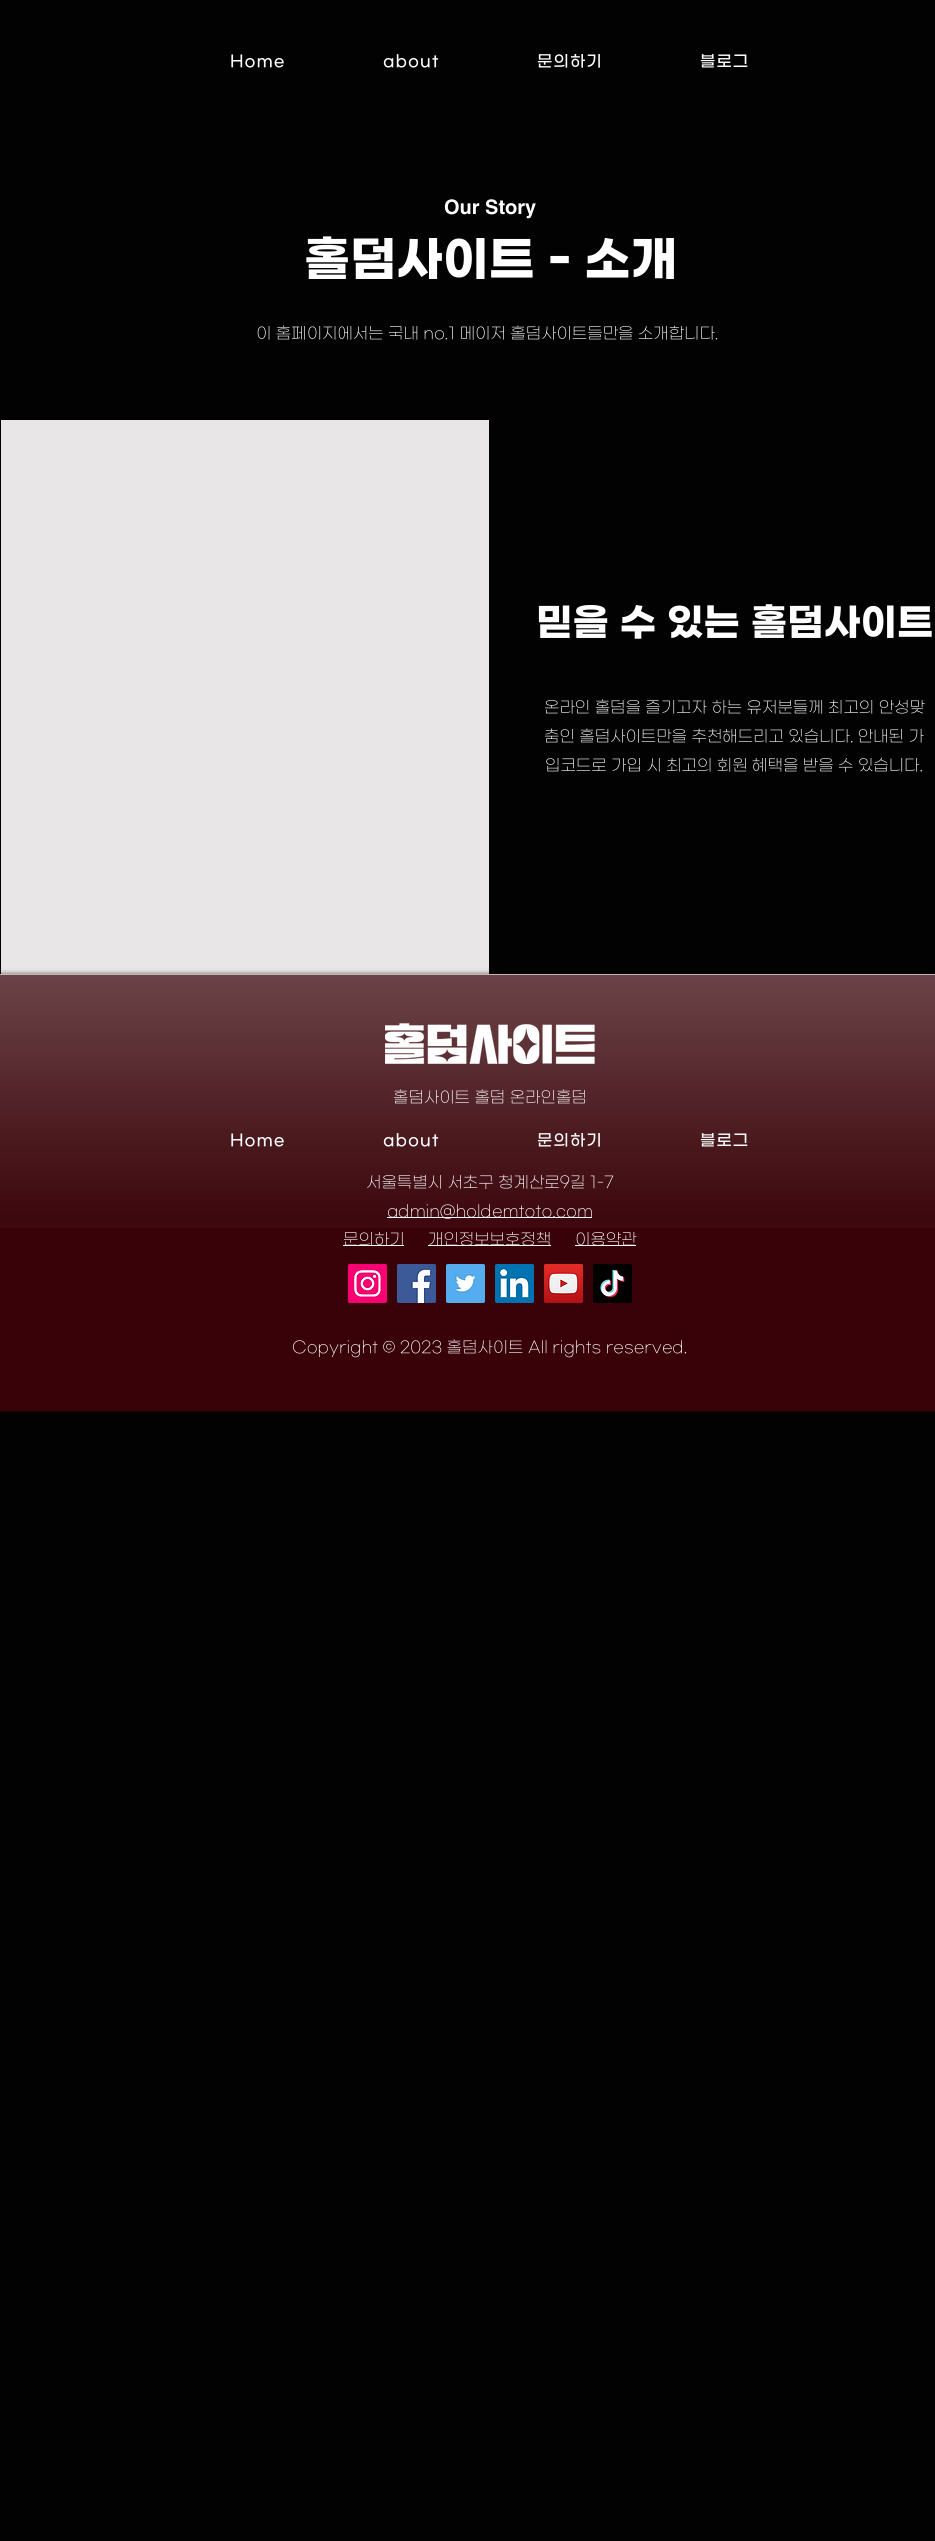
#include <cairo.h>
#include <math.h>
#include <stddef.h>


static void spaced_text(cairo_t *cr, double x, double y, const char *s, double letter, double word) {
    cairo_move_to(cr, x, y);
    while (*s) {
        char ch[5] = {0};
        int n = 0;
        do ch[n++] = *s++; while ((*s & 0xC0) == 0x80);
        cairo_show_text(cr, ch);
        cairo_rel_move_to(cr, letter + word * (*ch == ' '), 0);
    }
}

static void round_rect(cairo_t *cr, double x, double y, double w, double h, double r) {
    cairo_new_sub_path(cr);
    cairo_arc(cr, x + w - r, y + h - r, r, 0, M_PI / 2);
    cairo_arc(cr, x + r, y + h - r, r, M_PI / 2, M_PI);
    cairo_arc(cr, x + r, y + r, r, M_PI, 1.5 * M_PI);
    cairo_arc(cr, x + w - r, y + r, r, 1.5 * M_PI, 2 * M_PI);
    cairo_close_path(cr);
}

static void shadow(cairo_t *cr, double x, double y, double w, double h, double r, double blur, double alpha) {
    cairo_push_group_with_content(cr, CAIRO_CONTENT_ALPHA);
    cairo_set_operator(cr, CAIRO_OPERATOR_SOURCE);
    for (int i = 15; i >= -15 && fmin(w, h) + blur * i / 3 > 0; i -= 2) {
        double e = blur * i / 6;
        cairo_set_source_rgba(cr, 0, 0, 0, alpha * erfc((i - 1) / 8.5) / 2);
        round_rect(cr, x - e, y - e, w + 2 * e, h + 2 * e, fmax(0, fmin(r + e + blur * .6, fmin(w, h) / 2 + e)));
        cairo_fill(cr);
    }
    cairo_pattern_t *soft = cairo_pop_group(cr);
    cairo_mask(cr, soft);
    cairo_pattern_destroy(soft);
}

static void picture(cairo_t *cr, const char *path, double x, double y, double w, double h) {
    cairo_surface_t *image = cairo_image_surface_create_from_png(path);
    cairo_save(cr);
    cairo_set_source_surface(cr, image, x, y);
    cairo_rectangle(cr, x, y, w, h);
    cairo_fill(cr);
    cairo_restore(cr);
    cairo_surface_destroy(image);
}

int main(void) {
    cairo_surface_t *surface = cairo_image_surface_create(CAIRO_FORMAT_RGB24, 935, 2541);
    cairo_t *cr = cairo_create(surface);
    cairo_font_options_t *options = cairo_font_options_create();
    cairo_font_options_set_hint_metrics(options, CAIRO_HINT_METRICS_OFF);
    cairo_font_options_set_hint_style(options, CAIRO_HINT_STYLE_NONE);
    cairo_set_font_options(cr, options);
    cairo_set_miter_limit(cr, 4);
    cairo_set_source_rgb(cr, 0.008, 0.008, 0.008);
    cairo_paint(cr);
    cairo_select_font_face(cr, "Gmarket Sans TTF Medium", CAIRO_FONT_SLANT_NORMAL, CAIRO_FONT_WEIGHT_NORMAL);
    cairo_set_font_size(cr, 16);
    cairo_set_source_rgb(cr, 1, 1, 1);
    spaced_text(cr, 230, 66, "Home", 1, 0);
    spaced_text(cr, 383, 66, "about", 1, 0);
    spaced_text(cr, 537, 66, "문의하기", 1, 0);
    spaced_text(cr, 700, 66, "블로그", 1, 0);
    cairo_select_font_face(cr, "helvetica", CAIRO_FONT_SLANT_NORMAL, CAIRO_FONT_WEIGHT_BOLD);
    cairo_set_font_size(cr, 20);
    cairo_move_to(cr, 444, 214);
    cairo_show_text(cr, "Our Story");
    cairo_select_font_face(cr, "Gmarket Sans TTF", CAIRO_FONT_SLANT_NORMAL, CAIRO_FONT_WEIGHT_BOLD);
    cairo_set_font_size(cr, 48);
    cairo_move_to(cr, 304, 274);
    cairo_show_text(cr, "홀덤사이트 - 소개");
    cairo_select_font_face(cr, "Gmarket Sans TTF Light", CAIRO_FONT_SLANT_NORMAL, CAIRO_FONT_WEIGHT_NORMAL);
    cairo_set_font_size(cr, 16);
    cairo_move_to(cr, 256, 338);
    cairo_show_text(cr, "이 홈페이지에서는 국내 no.1 메이저 홀덤사이트들만을 소개합니다.");
    cairo_set_source_rgb(cr, 0.91, 0.902, 0.902);
    cairo_rectangle(cr, 1, 420, 488, 554);
    cairo_fill(cr);
    cairo_select_font_face(cr, "Gmarket Sans TTF", CAIRO_FONT_SLANT_NORMAL, CAIRO_FONT_WEIGHT_BOLD);
    cairo_set_font_size(cr, 38);
    cairo_set_source_rgb(cr, 1, 1, 1);
    cairo_move_to(cr, 536, 634);
    cairo_show_text(cr, "믿을 수 있는 홀덤사이트");
    cairo_select_font_face(cr, "Gmarket Sans TTF Light", CAIRO_FONT_SLANT_NORMAL, CAIRO_FONT_WEIGHT_NORMAL);
    cairo_set_font_size(cr, 16);
    cairo_move_to(cr, 544, 712);
    cairo_show_text(cr, "온라인 홀덤을 즐기고자 하는 유저분들께 최고의 안성맞");
    cairo_move_to(cr, 544, 741);
    cairo_show_text(cr, "춤인 홀덤사이트만을 추천해드리고 있습니다. 안내된 가");
    cairo_move_to(cr, 545, 770);
    cairo_show_text(cr, "입코드로 가입 시 최고의 회원 혜택을 받을 수 있습니다.");
    cairo_set_source_rgb(cr, 0, 0, 0);
    shadow(cr, 0, 974, 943, 438, 0, 2.5, 0.6);
    cairo_set_source_rgb(cr, 0.22, 0.008, 0.035);
    cairo_rectangle(cr, 0, 975, 935, 436);
    cairo_fill(cr);
    picture(cr, "img1.png", 0, 975, 935, 253);
    cairo_set_source_rgb(cr, 0.086, 0.004, 0.016);
    cairo_rectangle(cr, 0, 1411, 935, 1);
    cairo_fill(cr);
    cairo_set_source_rgb(cr, 0.769, 0.706, 0.714);
    cairo_rectangle(cr, 0, 974, 935, 1);
    cairo_fill(cr);
    picture(cr, "img2.png", 385, 1023, 210, 41);
    cairo_set_source_rgb(cr, 1, 1, 1);
    cairo_move_to(cr, 393, 1102);
    cairo_show_text(cr, "홀덤사이트 홀덤 온라인홀덤");
    cairo_select_font_face(cr, "Gmarket Sans TTF Medium", CAIRO_FONT_SLANT_NORMAL, CAIRO_FONT_WEIGHT_NORMAL);
    spaced_text(cr, 230, 1145, "Home", 1, 0);
    spaced_text(cr, 383, 1145, "about", 1, 0);
    spaced_text(cr, 537, 1145, "문의하기", 1, 0);
    spaced_text(cr, 700, 1145, "블로그", 1, 0);
    cairo_select_font_face(cr, "Gmarket Sans TTF Light", CAIRO_FONT_SLANT_NORMAL, CAIRO_FONT_WEIGHT_NORMAL);
    cairo_move_to(cr, 366, 1187);
    cairo_show_text(cr, "서울특별시 서초구 청계산로9길 1-7");
    cairo_rectangle(cr, 387, 1217, 205, 1);
    cairo_fill(cr);
    cairo_move_to(cr, 387, 1216);
    cairo_show_text(cr, "admin@holdemtoto.com");
    cairo_rectangle(cr, 343, 1245, 61, 1);
    cairo_fill(cr);
    cairo_move_to(cr, 343, 1244);
    cairo_show_text(cr, "문의하기");
    cairo_rectangle(cr, 428, 1245, 123, 1);
    cairo_fill(cr);
    cairo_move_to(cr, 428, 1244);
    cairo_show_text(cr, "개인정보보호정책");
    cairo_rectangle(cr, 575, 1245, 61, 1);
    cairo_fill(cr);
    cairo_move_to(cr, 575, 1244);
    cairo_show_text(cr, "이용약관");
    picture(cr, "img3.png", 348, 1264, 39, 39);
    picture(cr, "img4.png", 397, 1264, 39, 39);
    picture(cr, "img5.png", 446, 1264, 39, 39);
    picture(cr, "img6.png", 495, 1264, 39, 39);
    picture(cr, "img7.png", 544, 1264, 39, 39);
    picture(cr, "img8.png", 593, 1264, 39, 39);
    cairo_move_to(cr, 292, 1352);
    cairo_show_text(cr, "Copyright © 2023 홀덤사이트 All rights reserved.");
    cairo_surface_write_to_png(surface, "page.png");
    cairo_font_options_destroy(options);
    cairo_destroy(cr);
    cairo_surface_destroy(surface);
    return 0;
}
